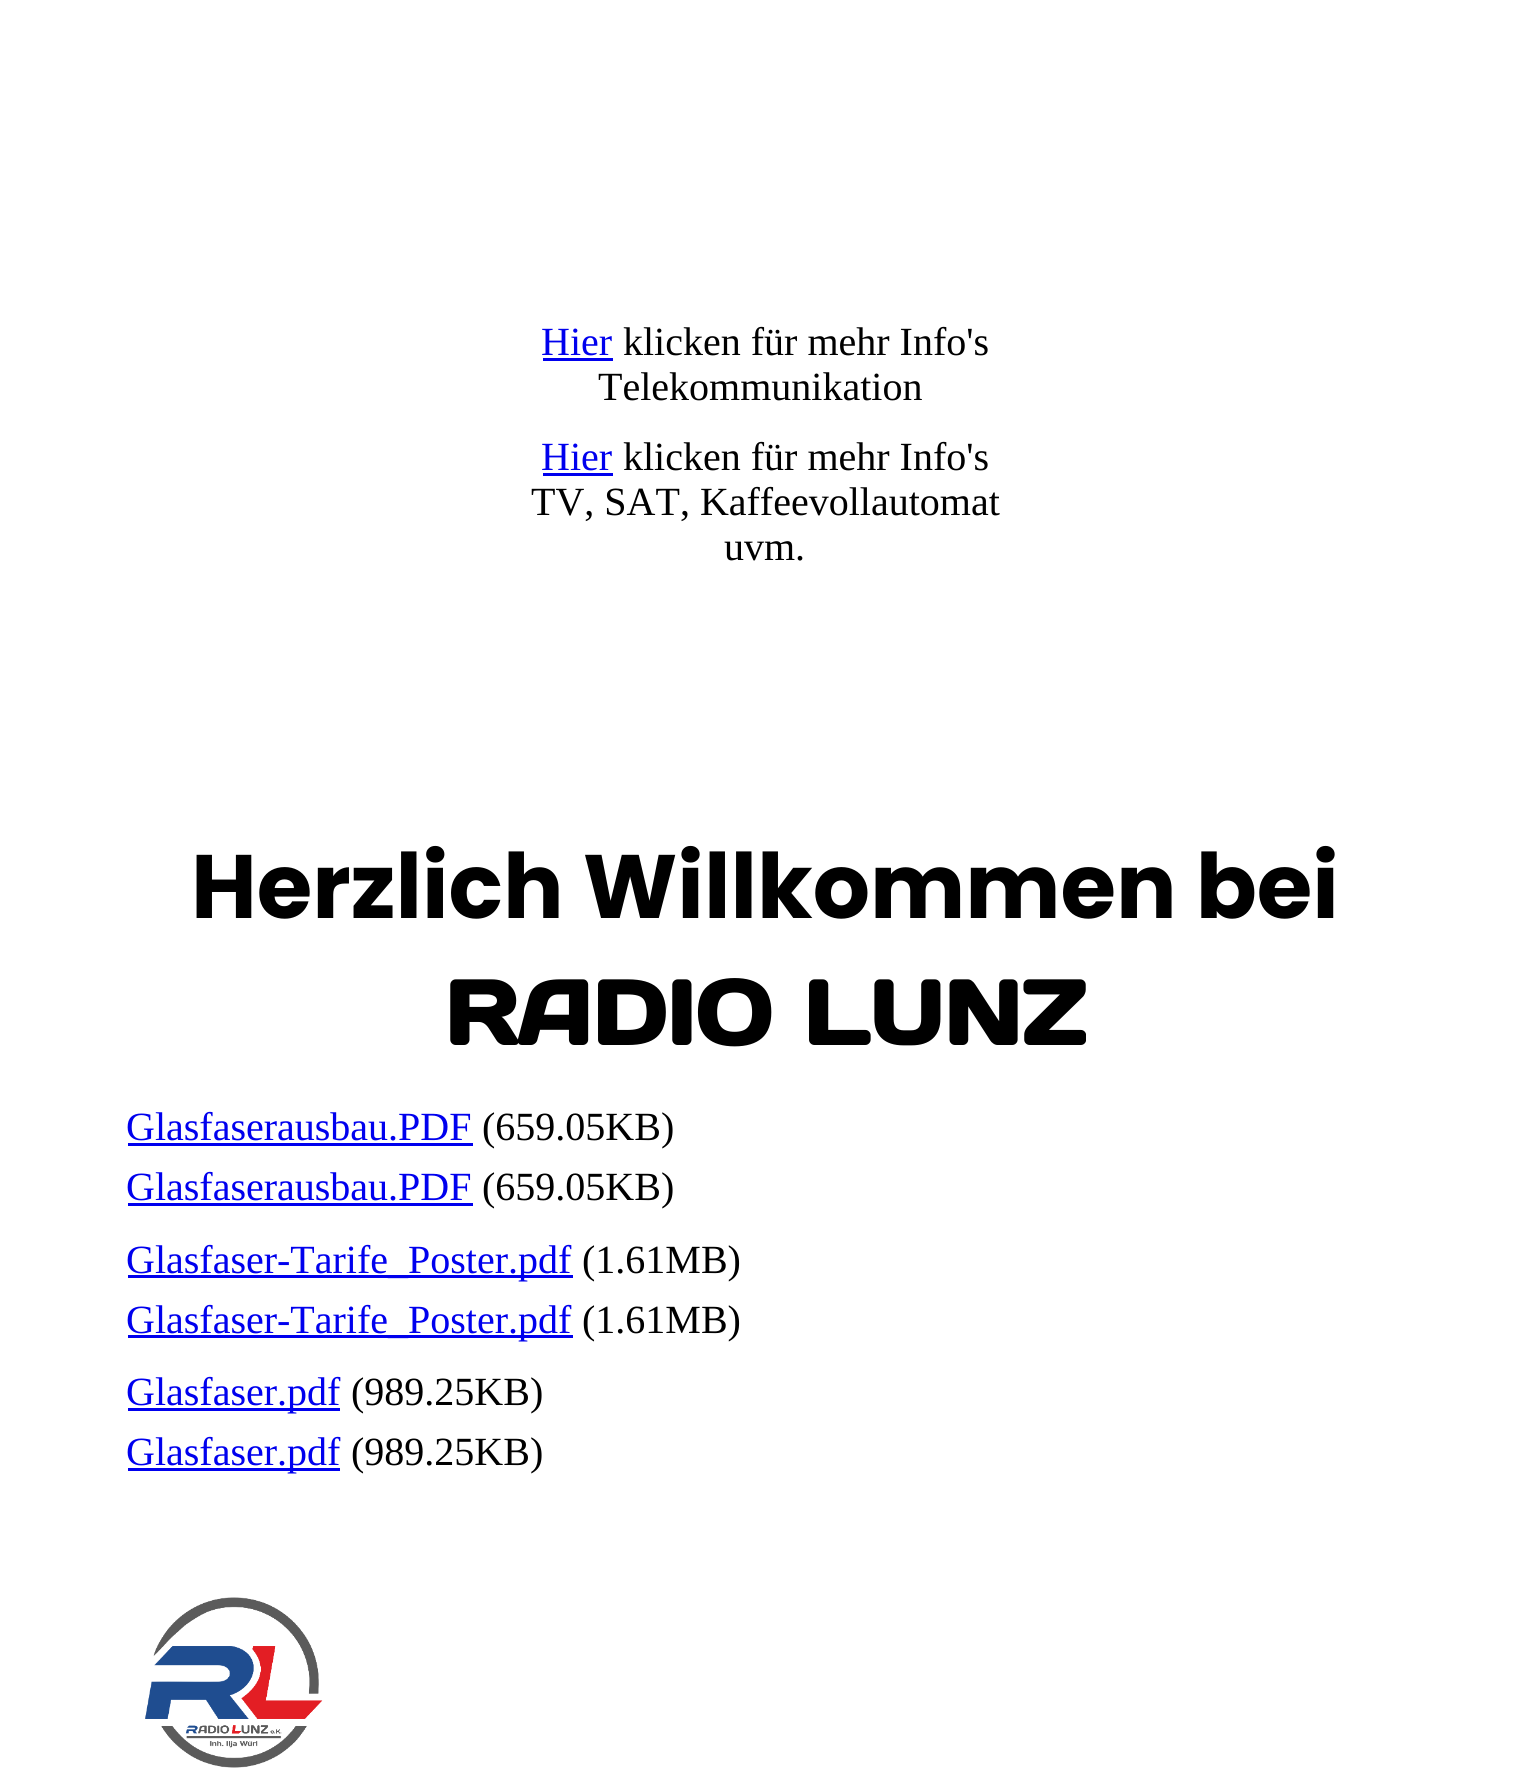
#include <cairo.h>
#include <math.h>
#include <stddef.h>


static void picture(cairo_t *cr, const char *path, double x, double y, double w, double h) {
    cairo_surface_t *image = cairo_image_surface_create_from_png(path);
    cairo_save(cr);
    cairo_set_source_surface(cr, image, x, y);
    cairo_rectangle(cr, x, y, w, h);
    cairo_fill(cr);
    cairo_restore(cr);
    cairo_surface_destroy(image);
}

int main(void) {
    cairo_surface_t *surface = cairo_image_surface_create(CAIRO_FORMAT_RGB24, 1529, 1774);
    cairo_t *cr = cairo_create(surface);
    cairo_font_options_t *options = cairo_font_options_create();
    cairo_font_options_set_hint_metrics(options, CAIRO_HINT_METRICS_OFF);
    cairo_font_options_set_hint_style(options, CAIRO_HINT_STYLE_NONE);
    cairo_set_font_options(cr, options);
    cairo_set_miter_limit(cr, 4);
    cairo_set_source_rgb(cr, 1, 1, 1);
    cairo_paint(cr);
    cairo_select_font_face(cr, "Liberation Serif", CAIRO_FONT_SLANT_NORMAL, CAIRO_FONT_WEIGHT_NORMAL);
    cairo_set_font_size(cr, 40);
    cairo_set_source_rgb(cr, 0, 0, 0.933);
    cairo_move_to(cr, 541, 355);
    cairo_show_text(cr, "Hier");
    cairo_rectangle(cr, 543, 358, 70, 3);
    cairo_fill(cr);
    cairo_set_source_rgb(cr, 0, 0, 0);
    cairo_move_to(cr, 623, 355);
    cairo_show_text(cr, "klicken für mehr Info's");
    cairo_move_to(cr, 598, 400);
    cairo_show_text(cr, "Telekommunikation");
    cairo_set_source_rgb(cr, 0, 0, 0.933);
    cairo_move_to(cr, 541, 470);
    cairo_show_text(cr, "Hier");
    cairo_rectangle(cr, 543, 473, 70, 3);
    cairo_fill(cr);
    cairo_set_source_rgb(cr, 0, 0, 0);
    cairo_move_to(cr, 623, 470);
    cairo_show_text(cr, "klicken für mehr Info's");
    cairo_move_to(cr, 531, 515);
    cairo_show_text(cr, "TV, SAT, Kaffeevollautomat");
    cairo_move_to(cr, 724, 560);
    cairo_show_text(cr, "uvm.");
    cairo_select_font_face(cr, "Poppins", CAIRO_FONT_SLANT_NORMAL, CAIRO_FONT_WEIGHT_BOLD);
    cairo_set_font_size(cr, 90);
    cairo_move_to(cr, 191, 918);
    cairo_show_text(cr, "Herzlich Willkommen bei");
    cairo_select_font_face(cr, "Days One", CAIRO_FONT_SLANT_NORMAL, CAIRO_FONT_WEIGHT_BOLD);
    cairo_move_to(cr, 444, 1045);
    cairo_show_text(cr, "RADIO LUNZ");
    cairo_select_font_face(cr, "Liberation Serif", CAIRO_FONT_SLANT_NORMAL, CAIRO_FONT_WEIGHT_NORMAL);
    cairo_set_font_size(cr, 40);
    cairo_set_source_rgb(cr, 0, 0, 0.933);
    cairo_move_to(cr, 126, 1140);
    cairo_show_text(cr, "Glasfaserausbau.PDF");
    cairo_rectangle(cr, 128, 1143, 345, 3);
    cairo_fill(cr);
    cairo_set_source_rgb(cr, 0, 0, 0);
    cairo_move_to(cr, 482, 1140);
    cairo_show_text(cr, "(659.05KB)");
    cairo_set_source_rgb(cr, 0, 0, 0.933);
    cairo_move_to(cr, 126, 1200);
    cairo_show_text(cr, "Glasfaserausbau.PDF");
    cairo_rectangle(cr, 128, 1203, 345, 3);
    cairo_fill(cr);
    cairo_set_source_rgb(cr, 0, 0, 0);
    cairo_move_to(cr, 482, 1200);
    cairo_show_text(cr, "(659.05KB)");
    cairo_set_source_rgb(cr, 0, 0, 0.933);
    cairo_rectangle(cr, 128, 1275, 445, 3);
    cairo_fill(cr);
    cairo_move_to(cr, 126, 1273);
    cairo_show_text(cr, "Glasfaser-Tarife_Poster.pdf");
    cairo_set_source_rgb(cr, 0, 0, 0);
    cairo_move_to(cr, 582, 1273);
    cairo_show_text(cr, "(1.61MB)");
    cairo_set_source_rgb(cr, 0, 0, 0.933);
    cairo_rectangle(cr, 128, 1335, 445, 3);
    cairo_fill(cr);
    cairo_move_to(cr, 126, 1333);
    cairo_show_text(cr, "Glasfaser-Tarife_Poster.pdf");
    cairo_set_source_rgb(cr, 0, 0, 0);
    cairo_move_to(cr, 582, 1333);
    cairo_show_text(cr, "(1.61MB)");
    cairo_set_source_rgb(cr, 0, 0, 0.933);
    cairo_rectangle(cr, 128, 1408, 212, 3);
    cairo_fill(cr);
    cairo_move_to(cr, 126, 1405);
    cairo_show_text(cr, "Glasfaser.pdf");
    cairo_set_source_rgb(cr, 0, 0, 0);
    cairo_move_to(cr, 351, 1405);
    cairo_show_text(cr, "(989.25KB)");
    cairo_set_source_rgb(cr, 0, 0, 0.933);
    cairo_rectangle(cr, 128, 1468, 212, 3);
    cairo_fill(cr);
    cairo_move_to(cr, 126, 1465);
    cairo_show_text(cr, "Glasfaser.pdf");
    cairo_set_source_rgb(cr, 0, 0, 0);
    cairo_move_to(cr, 351, 1465);
    cairo_show_text(cr, "(989.25KB)");
    picture(cr, "img1.png", 145, 1597, 178, 171);
    cairo_surface_write_to_png(surface, "page.png");
    cairo_font_options_destroy(options);
    cairo_destroy(cr);
    cairo_surface_destroy(surface);
    return 0;
}
